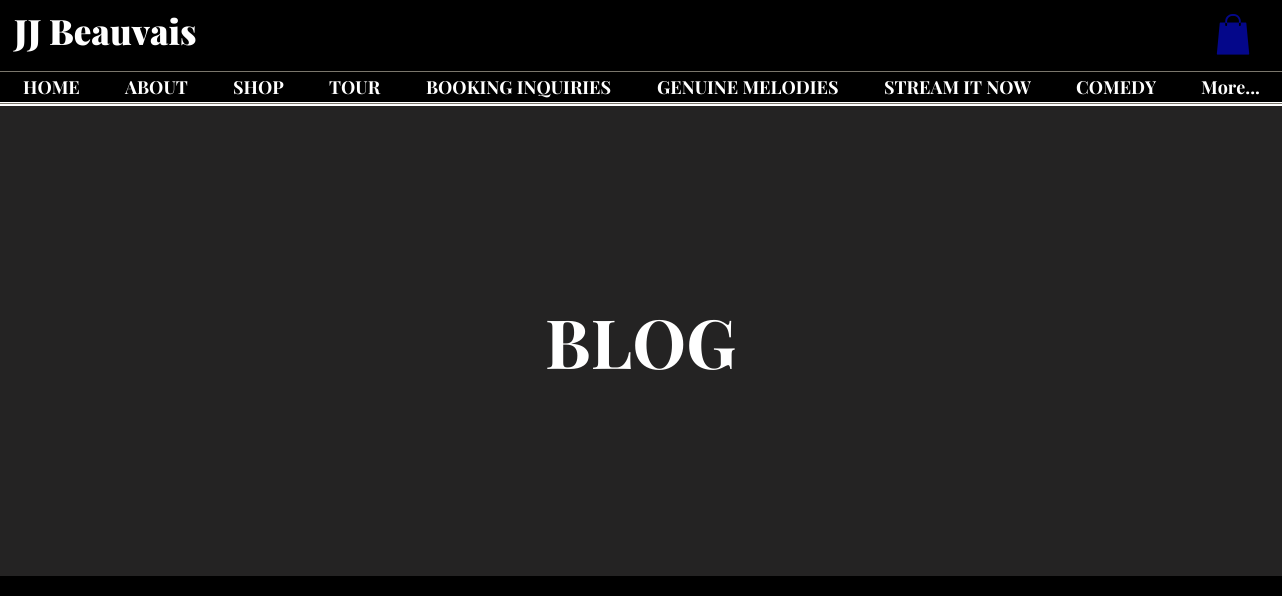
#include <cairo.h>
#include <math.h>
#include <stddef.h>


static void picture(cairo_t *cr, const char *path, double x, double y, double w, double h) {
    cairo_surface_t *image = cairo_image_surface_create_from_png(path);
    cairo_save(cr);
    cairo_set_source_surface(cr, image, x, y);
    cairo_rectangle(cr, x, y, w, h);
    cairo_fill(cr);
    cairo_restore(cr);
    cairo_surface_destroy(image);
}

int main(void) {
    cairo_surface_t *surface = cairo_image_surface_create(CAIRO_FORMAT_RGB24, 1282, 596);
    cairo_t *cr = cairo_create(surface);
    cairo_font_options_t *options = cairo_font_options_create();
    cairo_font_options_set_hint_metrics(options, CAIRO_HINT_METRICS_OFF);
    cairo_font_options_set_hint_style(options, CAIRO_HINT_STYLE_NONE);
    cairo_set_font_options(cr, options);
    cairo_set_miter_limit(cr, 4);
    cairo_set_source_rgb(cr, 0, 0, 0);
    cairo_paint(cr);
    cairo_select_font_face(cr, "Playfair Display Black", CAIRO_FONT_SLANT_NORMAL, CAIRO_FONT_WEIGHT_NORMAL);
    cairo_set_font_size(cr, 35);
    cairo_set_source_rgb(cr, 1, 1, 1);
    cairo_move_to(cr, 14, 45);
    cairo_show_text(cr, "JJ Beauvais");
    picture(cr, "img1.png", 1216, 14, 34, 41);
    cairo_set_source_rgb(cr, 0.478, 0.463, 0.424);
    cairo_rectangle(cr, 0, 71, 1282, 1);
    cairo_fill(cr);
    cairo_set_source_rgb(cr, 1, 1, 1);
    cairo_rectangle(cr, 0, 102, 1282, 4);
    cairo_fill(cr);
    cairo_set_source_rgb(cr, 0.478, 0.463, 0.424);
    cairo_rectangle(cr, 0, 103, 1282, 1);
    cairo_fill(cr);
    cairo_select_font_face(cr, "Playfair Display", CAIRO_FONT_SLANT_NORMAL, CAIRO_FONT_WEIGHT_BOLD);
    cairo_set_font_size(cr, 18);
    cairo_set_source_rgb(cr, 1, 1, 1);
    cairo_move_to(cr, 23, 94);
    cairo_show_text(cr, "HOME");
    cairo_move_to(cr, 125, 94);
    cairo_show_text(cr, "ABOUT");
    cairo_move_to(cr, 233, 94);
    cairo_show_text(cr, "SHOP");
    cairo_move_to(cr, 329, 94);
    cairo_show_text(cr, "TOUR");
    cairo_move_to(cr, 426, 94);
    cairo_show_text(cr, "BOOKING INQUIRIES");
    cairo_move_to(cr, 657, 94);
    cairo_show_text(cr, "GENUINE MELODIES");
    cairo_move_to(cr, 884, 94);
    cairo_show_text(cr, "STREAM IT NOW");
    cairo_move_to(cr, 1076, 94);
    cairo_show_text(cr, "COMEDY");
    cairo_move_to(cr, 1201, 94);
    cairo_show_text(cr, "More...");
    cairo_set_source_rgb(cr, 0.141, 0.137, 0.137);
    cairo_rectangle(cr, 0, 106, 1282, 470);
    cairo_fill(cr);
    cairo_set_font_size(cr, 68);
    cairo_set_source_rgb(cr, 1, 1, 1);
    cairo_move_to(cr, 545, 369);
    cairo_show_text(cr, "BLOG");
    cairo_surface_write_to_png(surface, "page.png");
    cairo_font_options_destroy(options);
    cairo_destroy(cr);
    cairo_surface_destroy(surface);
    return 0;
}
